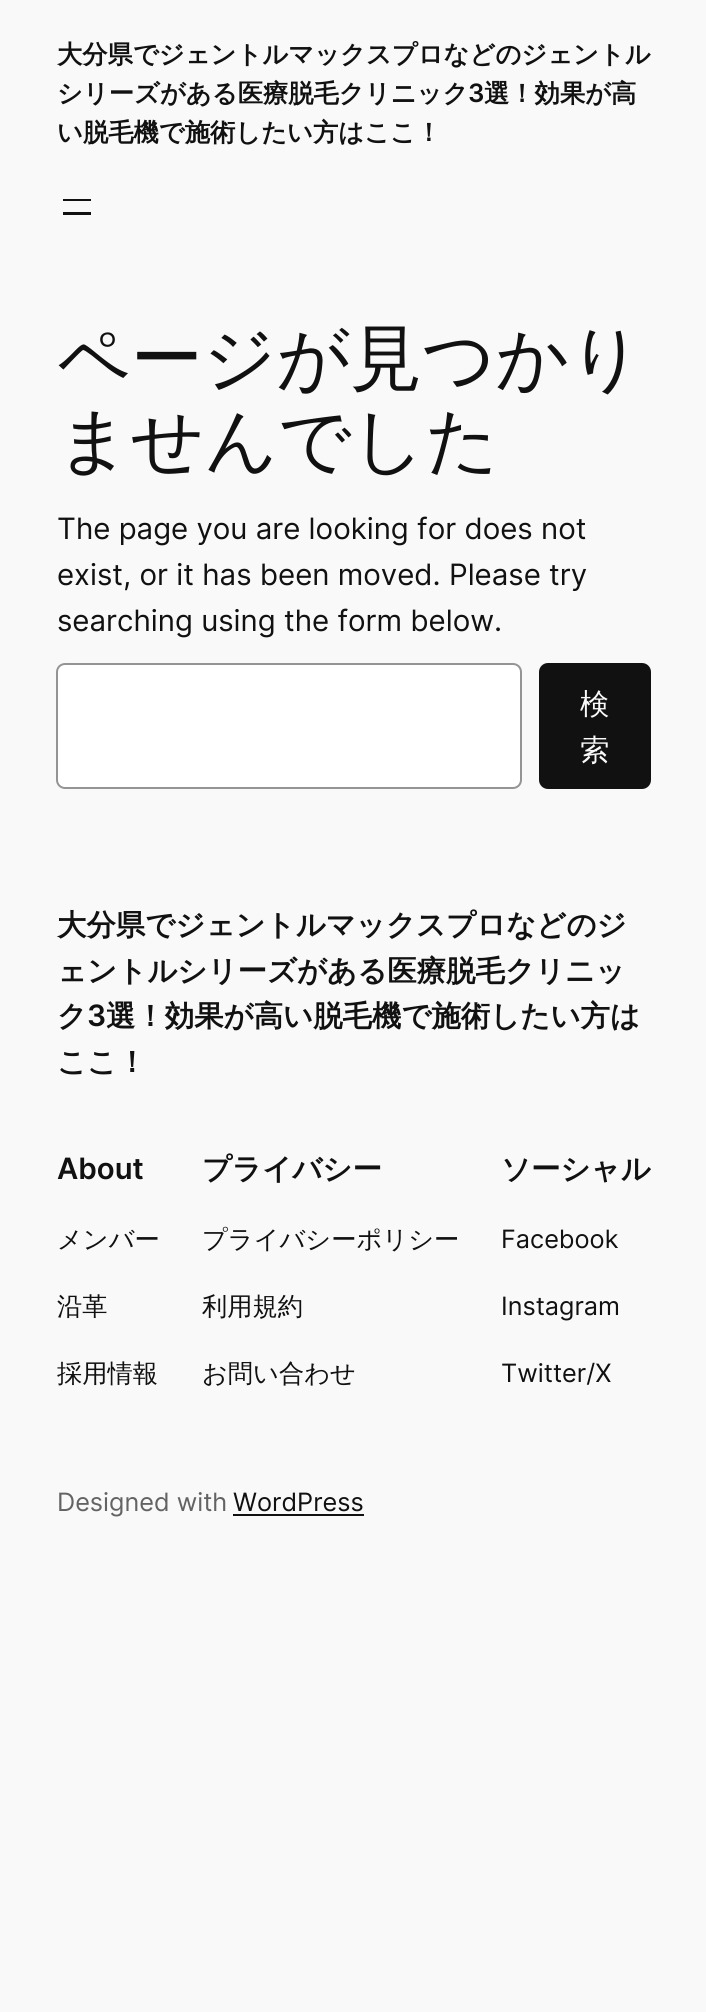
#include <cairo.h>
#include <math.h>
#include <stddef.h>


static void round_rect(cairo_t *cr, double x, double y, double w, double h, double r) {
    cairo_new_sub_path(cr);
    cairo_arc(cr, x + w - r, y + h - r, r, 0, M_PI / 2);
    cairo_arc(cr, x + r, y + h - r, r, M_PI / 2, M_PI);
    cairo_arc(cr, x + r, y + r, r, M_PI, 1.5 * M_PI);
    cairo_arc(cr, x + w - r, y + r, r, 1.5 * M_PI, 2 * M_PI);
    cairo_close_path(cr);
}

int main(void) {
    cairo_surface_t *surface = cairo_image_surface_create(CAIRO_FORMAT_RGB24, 706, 2012);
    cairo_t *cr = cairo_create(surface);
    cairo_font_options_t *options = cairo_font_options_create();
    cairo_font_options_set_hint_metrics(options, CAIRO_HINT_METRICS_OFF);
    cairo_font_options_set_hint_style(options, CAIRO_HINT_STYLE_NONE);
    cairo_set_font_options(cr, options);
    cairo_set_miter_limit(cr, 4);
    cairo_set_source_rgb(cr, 0.976, 0.976, 0.976);
    cairo_paint(cr);
    cairo_select_font_face(cr, "WenQuanYi Zen Hei", CAIRO_FONT_SLANT_NORMAL, CAIRO_FONT_WEIGHT_BOLD);
    cairo_set_font_size(cr, 25.3);
    cairo_set_source_rgb(cr, 0.067, 0.067, 0.067);
    cairo_move_to(cr, 57, 63);
    cairo_show_text(cr, "大分県でジェントルマックスプロなどのジェントル");
    cairo_move_to(cr, 57, 102);
    cairo_show_text(cr, "シリーズがある医療脱毛クリニック");
    cairo_select_font_face(cr, "Inter SemiBold", CAIRO_FONT_SLANT_NORMAL, CAIRO_FONT_WEIGHT_NORMAL);
    cairo_move_to(cr, 468, 102);
    cairo_show_text(cr, "3");
    cairo_select_font_face(cr, "WenQuanYi Zen Hei", CAIRO_FONT_SLANT_NORMAL, CAIRO_FONT_WEIGHT_BOLD);
    cairo_move_to(cr, 484, 102);
    cairo_show_text(cr, "選！効果が高");
    cairo_move_to(cr, 57, 141);
    cairo_show_text(cr, "い脱毛機で施術したい方はここ！");
    cairo_rectangle(cr, 63, 199, 28, 2);
    cairo_fill(cr);
    cairo_rectangle(cr, 63, 212, 28, 3);
    cairo_fill(cr);
    cairo_select_font_face(cr, "WenQuanYi Zen Hei Medium", CAIRO_FONT_SLANT_NORMAL, CAIRO_FONT_WEIGHT_NORMAL);
    cairo_set_font_size(cr, 72);
    cairo_move_to(cr, 57, 383);
    cairo_show_text(cr, "ページが見つかり");
    cairo_move_to(cr, 57, 465);
    cairo_show_text(cr, "ませんでした");
    cairo_select_font_face(cr, "Inter", CAIRO_FONT_SLANT_NORMAL, CAIRO_FONT_WEIGHT_NORMAL);
    cairo_set_font_size(cr, 29.4);
    cairo_move_to(cr, 57, 539);
    cairo_show_text(cr, "The page you are looking for does not");
    cairo_move_to(cr, 57, 585);
    cairo_show_text(cr, "exist, or it has been moved. Please try");
    cairo_move_to(cr, 57, 631);
    cairo_show_text(cr, "searching using the form below.");
    cairo_set_source_rgb(cr, 1, 1, 1);
    round_rect(cr, 57, 664, 464, 124, 8);
    cairo_fill_preserve(cr);
    cairo_set_source_rgb(cr, 0.58, 0.58, 0.58);
    cairo_stroke(cr);
    cairo_set_source_rgb(cr, 0.067, 0.067, 0.067);
    round_rect(cr, 539, 663, 112, 126, 9);
    cairo_fill(cr);
    cairo_select_font_face(cr, "WenQuanYi Zen Hei Medium", CAIRO_FONT_SLANT_NORMAL, CAIRO_FONT_WEIGHT_NORMAL);
    cairo_set_source_rgb(cr, 0.976, 0.976, 0.976);
    cairo_move_to(cr, 580, 714);
    cairo_show_text(cr, "検");
    cairo_move_to(cr, 580, 760);
    cairo_show_text(cr, "索");
    cairo_select_font_face(cr, "WenQuanYi Zen Hei", CAIRO_FONT_SLANT_NORMAL, CAIRO_FONT_WEIGHT_BOLD);
    cairo_set_source_rgb(cr, 0.067, 0.067, 0.067);
    cairo_move_to(cr, 57, 935);
    cairo_show_text(cr, "大分県でジェントルマックスプロなどのジ");
    cairo_move_to(cr, 57, 981);
    cairo_show_text(cr, "ェントルシリーズがある医療脱毛クリニッ");
    cairo_move_to(cr, 57, 1026);
    cairo_show_text(cr, "ク");
    cairo_select_font_face(cr, "Inter SemiBold", CAIRO_FONT_SLANT_NORMAL, CAIRO_FONT_WEIGHT_NORMAL);
    cairo_move_to(cr, 87, 1026);
    cairo_show_text(cr, "3");
    cairo_select_font_face(cr, "WenQuanYi Zen Hei", CAIRO_FONT_SLANT_NORMAL, CAIRO_FONT_WEIGHT_BOLD);
    cairo_move_to(cr, 106, 1026);
    cairo_show_text(cr, "選！効果が高い脱毛機で施術したい方は");
    cairo_move_to(cr, 57, 1072);
    cairo_show_text(cr, "ここ！");
    cairo_select_font_face(cr, "Inter SemiBold", CAIRO_FONT_SLANT_NORMAL, CAIRO_FONT_WEIGHT_NORMAL);
    cairo_move_to(cr, 57, 1179);
    cairo_show_text(cr, "About");
    cairo_select_font_face(cr, "WenQuanYi Zen Hei Medium", CAIRO_FONT_SLANT_NORMAL, CAIRO_FONT_WEIGHT_NORMAL);
    cairo_set_font_size(cr, 25.25);
    cairo_move_to(cr, 57, 1248);
    cairo_show_text(cr, "メンバー");
    cairo_move_to(cr, 57, 1315);
    cairo_show_text(cr, "沿革");
    cairo_move_to(cr, 57, 1382);
    cairo_show_text(cr, "採用情報");
    cairo_select_font_face(cr, "WenQuanYi Zen Hei", CAIRO_FONT_SLANT_NORMAL, CAIRO_FONT_WEIGHT_BOLD);
    cairo_set_font_size(cr, 29.4);
    cairo_move_to(cr, 202, 1179);
    cairo_show_text(cr, "プライバシー");
    cairo_select_font_face(cr, "WenQuanYi Zen Hei Medium", CAIRO_FONT_SLANT_NORMAL, CAIRO_FONT_WEIGHT_NORMAL);
    cairo_set_font_size(cr, 25.25);
    cairo_move_to(cr, 202, 1248);
    cairo_show_text(cr, "プライバシーポリシー");
    cairo_move_to(cr, 202, 1315);
    cairo_show_text(cr, "利用規約");
    cairo_move_to(cr, 202, 1382);
    cairo_show_text(cr, "お問い合わせ");
    cairo_select_font_face(cr, "WenQuanYi Zen Hei", CAIRO_FONT_SLANT_NORMAL, CAIRO_FONT_WEIGHT_BOLD);
    cairo_set_font_size(cr, 29.4);
    cairo_move_to(cr, 501, 1179);
    cairo_show_text(cr, "ソーシャル");
    cairo_select_font_face(cr, "Inter", CAIRO_FONT_SLANT_NORMAL, CAIRO_FONT_WEIGHT_NORMAL);
    cairo_set_font_size(cr, 25.25);
    cairo_move_to(cr, 501, 1248);
    cairo_show_text(cr, "Facebook");
    cairo_move_to(cr, 501, 1315);
    cairo_show_text(cr, "Instagram");
    cairo_move_to(cr, 501, 1382);
    cairo_show_text(cr, "Twitter/X");
    cairo_set_source_rgb(cr, 0.388, 0.388, 0.388);
    cairo_move_to(cr, 57, 1511);
    cairo_show_text(cr, "Designed with");
    cairo_set_source_rgb(cr, 0.067, 0.067, 0.067);
    cairo_move_to(cr, 233, 1511);
    cairo_show_text(cr, "WordPress");
    cairo_rectangle(cr, 233, 1514, 131, 2);
    cairo_fill(cr);
    cairo_surface_write_to_png(surface, "page.png");
    cairo_font_options_destroy(options);
    cairo_destroy(cr);
    cairo_surface_destroy(surface);
    return 0;
}
